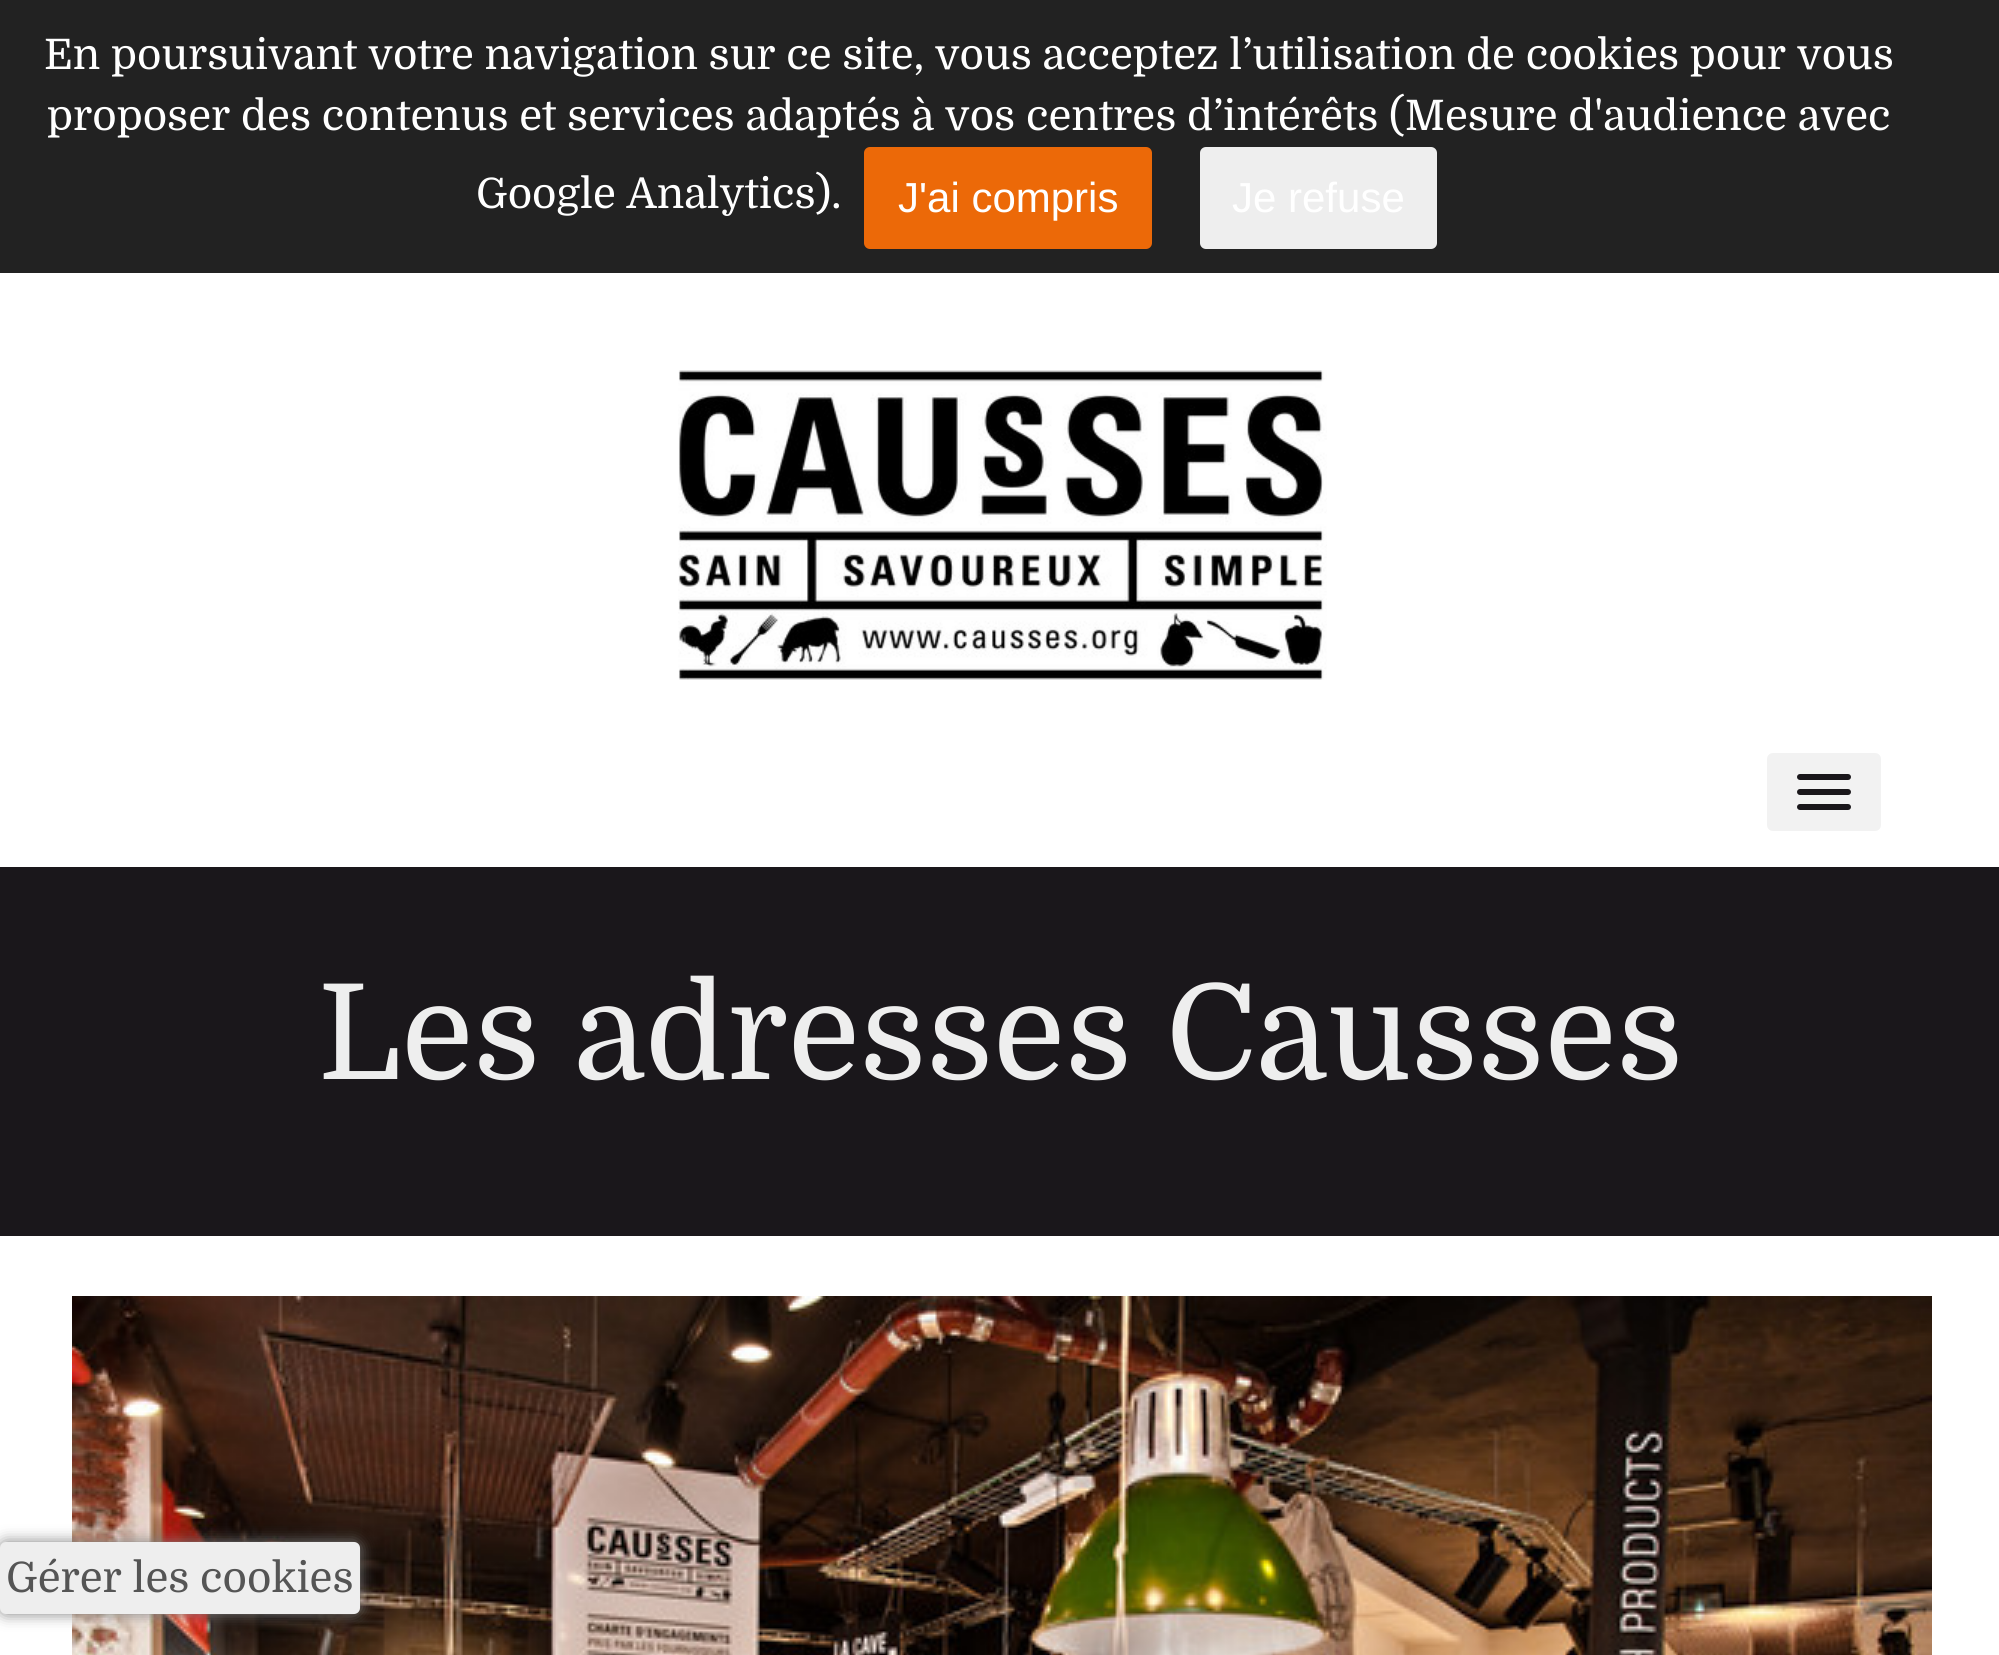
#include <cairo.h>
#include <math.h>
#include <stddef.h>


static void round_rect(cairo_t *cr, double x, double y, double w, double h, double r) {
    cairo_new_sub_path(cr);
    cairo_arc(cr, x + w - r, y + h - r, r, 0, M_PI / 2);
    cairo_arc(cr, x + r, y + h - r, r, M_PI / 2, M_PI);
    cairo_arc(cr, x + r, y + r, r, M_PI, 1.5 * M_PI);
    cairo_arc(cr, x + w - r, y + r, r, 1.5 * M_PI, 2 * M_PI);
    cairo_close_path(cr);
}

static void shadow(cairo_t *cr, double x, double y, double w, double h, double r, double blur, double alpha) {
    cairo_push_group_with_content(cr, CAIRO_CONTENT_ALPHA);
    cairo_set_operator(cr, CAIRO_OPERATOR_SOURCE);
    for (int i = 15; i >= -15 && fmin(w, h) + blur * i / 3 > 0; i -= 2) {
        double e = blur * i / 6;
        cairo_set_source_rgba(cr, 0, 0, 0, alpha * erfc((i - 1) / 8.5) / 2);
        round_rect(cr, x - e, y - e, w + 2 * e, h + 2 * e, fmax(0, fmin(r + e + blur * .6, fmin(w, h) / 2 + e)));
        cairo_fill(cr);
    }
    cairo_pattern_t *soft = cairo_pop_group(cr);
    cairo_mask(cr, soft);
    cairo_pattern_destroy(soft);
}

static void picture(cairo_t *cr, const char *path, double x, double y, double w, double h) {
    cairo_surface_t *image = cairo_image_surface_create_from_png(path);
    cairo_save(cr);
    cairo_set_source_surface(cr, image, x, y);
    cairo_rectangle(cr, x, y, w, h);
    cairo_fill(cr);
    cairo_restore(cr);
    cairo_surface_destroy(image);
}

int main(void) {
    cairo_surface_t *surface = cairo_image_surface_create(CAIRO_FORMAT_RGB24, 1999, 1655);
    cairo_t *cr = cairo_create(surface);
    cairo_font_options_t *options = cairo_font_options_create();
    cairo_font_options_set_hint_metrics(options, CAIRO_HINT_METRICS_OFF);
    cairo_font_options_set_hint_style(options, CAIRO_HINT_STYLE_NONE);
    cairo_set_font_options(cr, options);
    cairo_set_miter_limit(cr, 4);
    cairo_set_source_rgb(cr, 1, 1, 1);
    cairo_paint(cr);
    cairo_set_source_rgb(cr, 0.133, 0.133, 0.133);
    cairo_rectangle(cr, 0, 0, 1999, 273);
    cairo_fill(cr);
    cairo_select_font_face(cr, "Domine", CAIRO_FONT_SLANT_NORMAL, CAIRO_FONT_WEIGHT_NORMAL);
    cairo_set_font_size(cr, 42);
    cairo_set_source_rgb(cr, 1, 1, 1);
    cairo_move_to(cr, 44, 69);
    cairo_show_text(cr, "En poursuivant votre navigation sur ce site, vous acceptez l’utilisation de cookies pour vous");
    cairo_move_to(cr, 47, 130);
    cairo_show_text(cr, "proposer des contenus et services adaptés à vos centres d’intérêts (Mesure d'audience avec");
    cairo_move_to(cr, 476, 208);
    cairo_show_text(cr, "Google Analytics).");
    cairo_set_source_rgb(cr, 0.922, 0.412, 0.035);
    round_rect(cr, 864, 147, 288, 102, 6);
    cairo_fill(cr);
    cairo_select_font_face(cr, "Liberation Sans", CAIRO_FONT_SLANT_NORMAL, CAIRO_FONT_WEIGHT_NORMAL);
    cairo_set_source_rgb(cr, 1, 1, 1);
    cairo_move_to(cr, 898, 212);
    cairo_show_text(cr, "J'ai compris");
    cairo_set_source_rgb(cr, 0.933, 0.933, 0.933);
    round_rect(cr, 1200, 147, 237, 102, 6);
    cairo_fill(cr);
    cairo_set_source_rgb(cr, 1, 1, 1);
    cairo_move_to(cr, 1232, 212);
    cairo_show_text(cr, "Je refuse");
    picture(cr, "img1.png", 678, 370, 649, 310);
    cairo_set_source_rgb(cr, 0.949, 0.949, 0.949);
    round_rect(cr, 1767, 753, 114, 78, 6);
    cairo_fill(cr);
    cairo_set_source_rgb(cr, 0.102, 0.09, 0.106);
    round_rect(cr, 1797, 774, 54, 6, 3);
    cairo_fill(cr);
    round_rect(cr, 1797, 789, 54, 6, 3);
    cairo_fill(cr);
    round_rect(cr, 1797, 804, 54, 6, 3);
    cairo_fill(cr);
    cairo_rectangle(cr, 0, 867, 1999, 369);
    cairo_fill(cr);
    cairo_select_font_face(cr, "Domine", CAIRO_FONT_SLANT_NORMAL, CAIRO_FONT_WEIGHT_NORMAL);
    cairo_set_font_size(cr, 132.5);
    cairo_set_source_rgb(cr, 0.933, 0.933, 0.933);
    cairo_move_to(cr, 318, 1079);
    cairo_show_text(cr, "Les adresses Causses");
    picture(cr, "img2.png", 72, 1296, 1860, 359);
    cairo_set_source_rgb(cr, 0.502, 0.502, 0.502);
    shadow(cr, 0, 1542, 360, 72, 6, 7.5, 1);
    cairo_set_source_rgb(cr, 0.933, 0.933, 0.933);
    round_rect(cr, 0, 1542, 360, 72, 6);
    cairo_fill(cr);
    cairo_set_font_size(cr, 42);
    cairo_set_source_rgb(cr, 0.333, 0.333, 0.333);
    cairo_move_to(cr, 6, 1592);
    cairo_show_text(cr, "Gérer les cookies");
    cairo_surface_write_to_png(surface, "page.png");
    cairo_font_options_destroy(options);
    cairo_destroy(cr);
    cairo_surface_destroy(surface);
    return 0;
}
